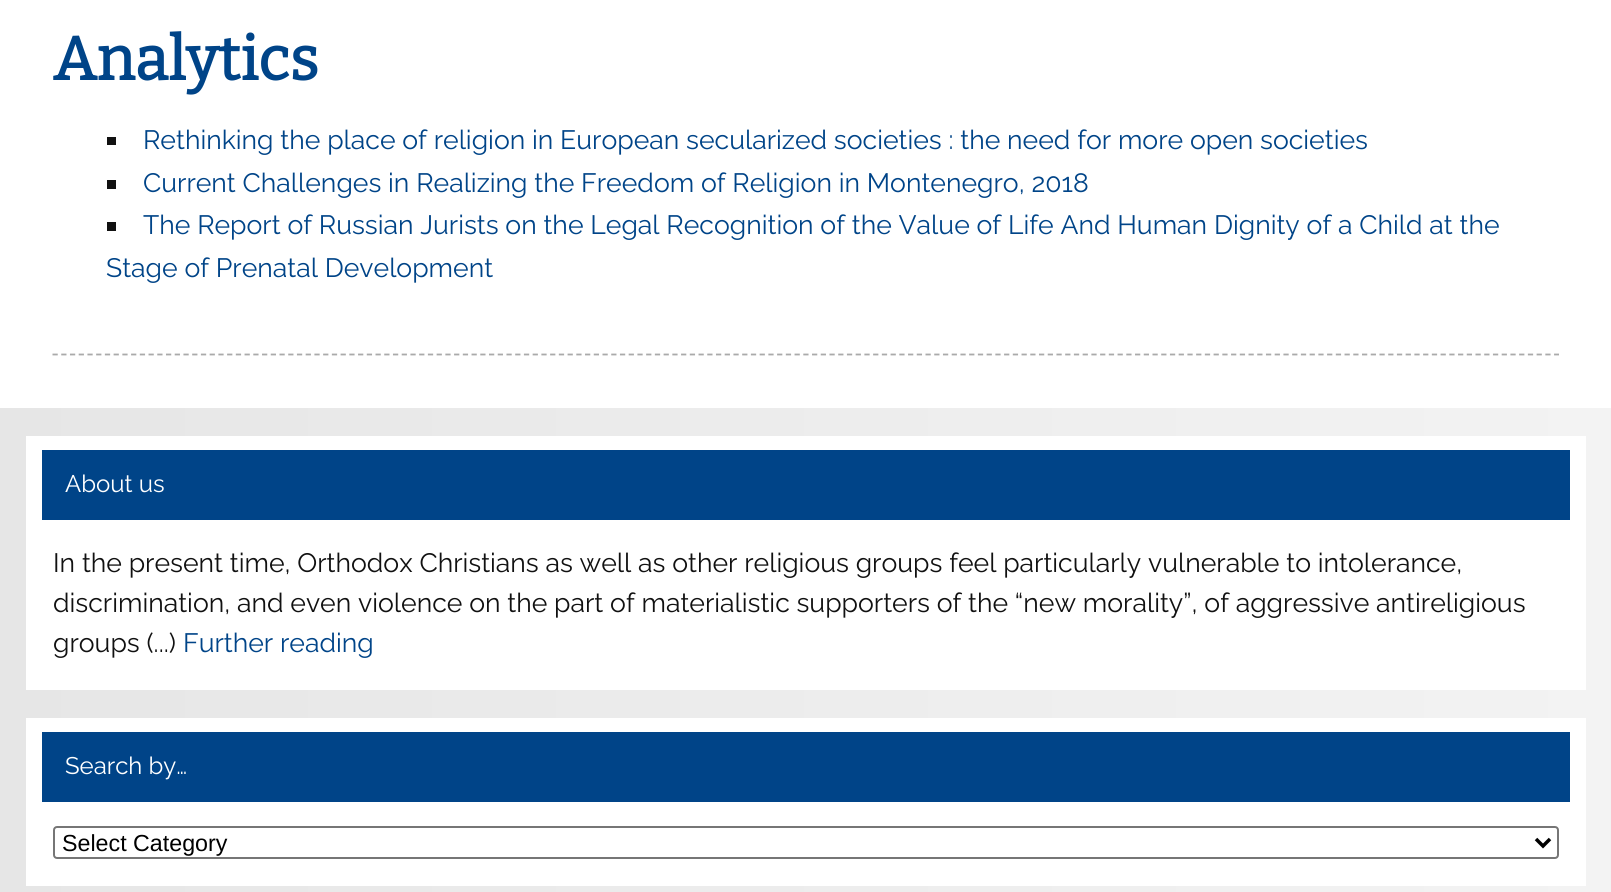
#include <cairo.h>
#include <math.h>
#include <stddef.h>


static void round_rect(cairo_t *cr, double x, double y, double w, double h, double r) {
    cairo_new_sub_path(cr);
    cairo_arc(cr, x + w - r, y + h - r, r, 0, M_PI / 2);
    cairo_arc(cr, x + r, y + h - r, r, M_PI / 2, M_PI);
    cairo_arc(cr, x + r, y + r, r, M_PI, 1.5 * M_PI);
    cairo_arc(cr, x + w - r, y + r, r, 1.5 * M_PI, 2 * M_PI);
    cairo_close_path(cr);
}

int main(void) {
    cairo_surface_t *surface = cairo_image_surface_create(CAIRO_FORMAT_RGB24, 1611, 892);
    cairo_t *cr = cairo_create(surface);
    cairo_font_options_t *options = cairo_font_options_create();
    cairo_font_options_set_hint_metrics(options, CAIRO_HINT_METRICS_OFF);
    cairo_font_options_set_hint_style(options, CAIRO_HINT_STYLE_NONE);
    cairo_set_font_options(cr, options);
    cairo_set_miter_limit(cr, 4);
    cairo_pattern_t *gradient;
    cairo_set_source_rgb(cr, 1, 1, 1);
    cairo_paint(cr);
    cairo_new_path(cr);
    cairo_move_to(cr, 52.5, 354.5);
    cairo_line_to(cr, 1559, 354.5);
    cairo_set_source_rgb(cr, 0.667, 0.667, 0.667);
    cairo_set_line_width(cr, 1.8);
    cairo_set_dash(cr, (double[]){5.25, 3.48}, 2, 0);
    cairo_stroke(cr);
    cairo_select_font_face(cr, "Bitter", CAIRO_FONT_SLANT_NORMAL, CAIRO_FONT_WEIGHT_BOLD);
    cairo_set_font_size(cr, 61);
    cairo_set_source_rgb(cr, 0, 0.267, 0.533);
    cairo_move_to(cr, 53, 80);
    cairo_show_text(cr, "Analytics");
    cairo_set_source_rgb(cr, 0.067, 0.067, 0.067);
    cairo_rectangle(cr, 107, 137, 9, 8);
    cairo_fill(cr);
    cairo_select_font_face(cr, "Raleway", CAIRO_FONT_SLANT_NORMAL, CAIRO_FONT_WEIGHT_NORMAL);
    cairo_set_font_size(cr, 26.6);
    cairo_set_source_rgb(cr, 0, 0.267, 0.533);
    cairo_move_to(cr, 143, 149);
    cairo_show_text(cr, "Rethinking the place of religion in European secularized societies : the need for more open societies");
    cairo_set_source_rgb(cr, 0.067, 0.067, 0.067);
    cairo_rectangle(cr, 107, 180, 9, 9);
    cairo_fill(cr);
    cairo_set_source_rgb(cr, 0, 0.267, 0.533);
    cairo_move_to(cr, 143, 192);
    cairo_show_text(cr, "Current Challenges in Realizing the Freedom of Religion in Montenegro, 2018");
    cairo_set_source_rgb(cr, 0.067, 0.067, 0.067);
    cairo_rectangle(cr, 107, 222, 9, 9);
    cairo_fill(cr);
    cairo_set_source_rgb(cr, 0, 0.267, 0.533);
    cairo_move_to(cr, 143, 234);
    cairo_show_text(cr, "The Report of Russian Jurists on the Legal Recognition of the Value of Life And Human Dignity of a Child at the");
    cairo_move_to(cr, 106, 277);
    cairo_show_text(cr, "Stage of Prenatal Development");
    gradient = cairo_pattern_create_linear(0, 847, 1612, 847);
    cairo_pattern_add_color_stop_rgba(gradient, 0, 0.902, 0.902, 0.902, 1);
    cairo_pattern_add_color_stop_rgba(gradient, 1, 0.953, 0.953, 0.953, 1);
    cairo_set_source(cr, gradient);
    cairo_pattern_destroy(gradient);
    cairo_rectangle(cr, 0, 408, 1611, 484);
    cairo_fill(cr);
    cairo_set_source_rgb(cr, 1, 1, 1);
    cairo_rectangle(cr, 26, 436, 1560, 254);
    cairo_fill(cr);
    cairo_set_source_rgb(cr, 0, 0.267, 0.533);
    cairo_rectangle(cr, 42, 450, 1528, 70);
    cairo_fill(cr);
    cairo_set_font_size(cr, 24);
    cairo_set_source_rgb(cr, 1, 1, 1);
    cairo_move_to(cr, 65, 492);
    cairo_show_text(cr, "About us");
    cairo_set_font_size(cr, 26.6);
    cairo_set_source_rgb(cr, 0.067, 0.067, 0.067);
    cairo_move_to(cr, 53, 572);
    cairo_show_text(cr, "In the present time, Orthodox Christians as well as other religious groups feel particularly vulnerable to intolerance,");
    cairo_move_to(cr, 53, 612);
    cairo_show_text(cr, "discrimination, and even violence on the part of materialistic supporters of the “new morality”, of aggressive antireligious");
    cairo_move_to(cr, 53, 652);
    cairo_show_text(cr, "groups (...)");
    cairo_set_source_rgb(cr, 0, 0.267, 0.533);
    cairo_move_to(cr, 183, 652);
    cairo_show_text(cr, "Further reading");
    cairo_set_source_rgb(cr, 1, 1, 1);
    cairo_rectangle(cr, 26, 718, 1560, 168);
    cairo_fill(cr);
    cairo_set_source_rgb(cr, 0, 0.267, 0.533);
    cairo_rectangle(cr, 42, 732, 1528, 70);
    cairo_fill(cr);
    cairo_set_font_size(cr, 24);
    cairo_set_source_rgb(cr, 1, 1, 1);
    cairo_move_to(cr, 65, 774);
    cairo_show_text(cr, "Search by…");
    round_rect(cr, 54, 827, 1504, 31, 3);
    cairo_set_source_rgb(cr, 0.463, 0.463, 0.463);
    cairo_set_line_width(cr, 2);
    cairo_set_dash(cr, NULL, 0, 0);
    cairo_stroke(cr);
    cairo_new_path(cr);
    cairo_move_to(cr, 1536, 839);
    cairo_line_to(cr, 1543, 846);
    cairo_line_to(cr, 1550, 839);
    cairo_set_source_rgb(cr, 0, 0, 0);
    cairo_set_line_width(cr, 3.5);
    cairo_stroke(cr);
    cairo_select_font_face(cr, "Liberation Sans", CAIRO_FONT_SLANT_NORMAL, CAIRO_FONT_WEIGHT_NORMAL);
    cairo_set_font_size(cr, 23.25);
    cairo_move_to(cr, 62, 851);
    cairo_show_text(cr, "Select Category");
    cairo_surface_write_to_png(surface, "page.png");
    cairo_font_options_destroy(options);
    cairo_destroy(cr);
    cairo_surface_destroy(surface);
    return 0;
}
